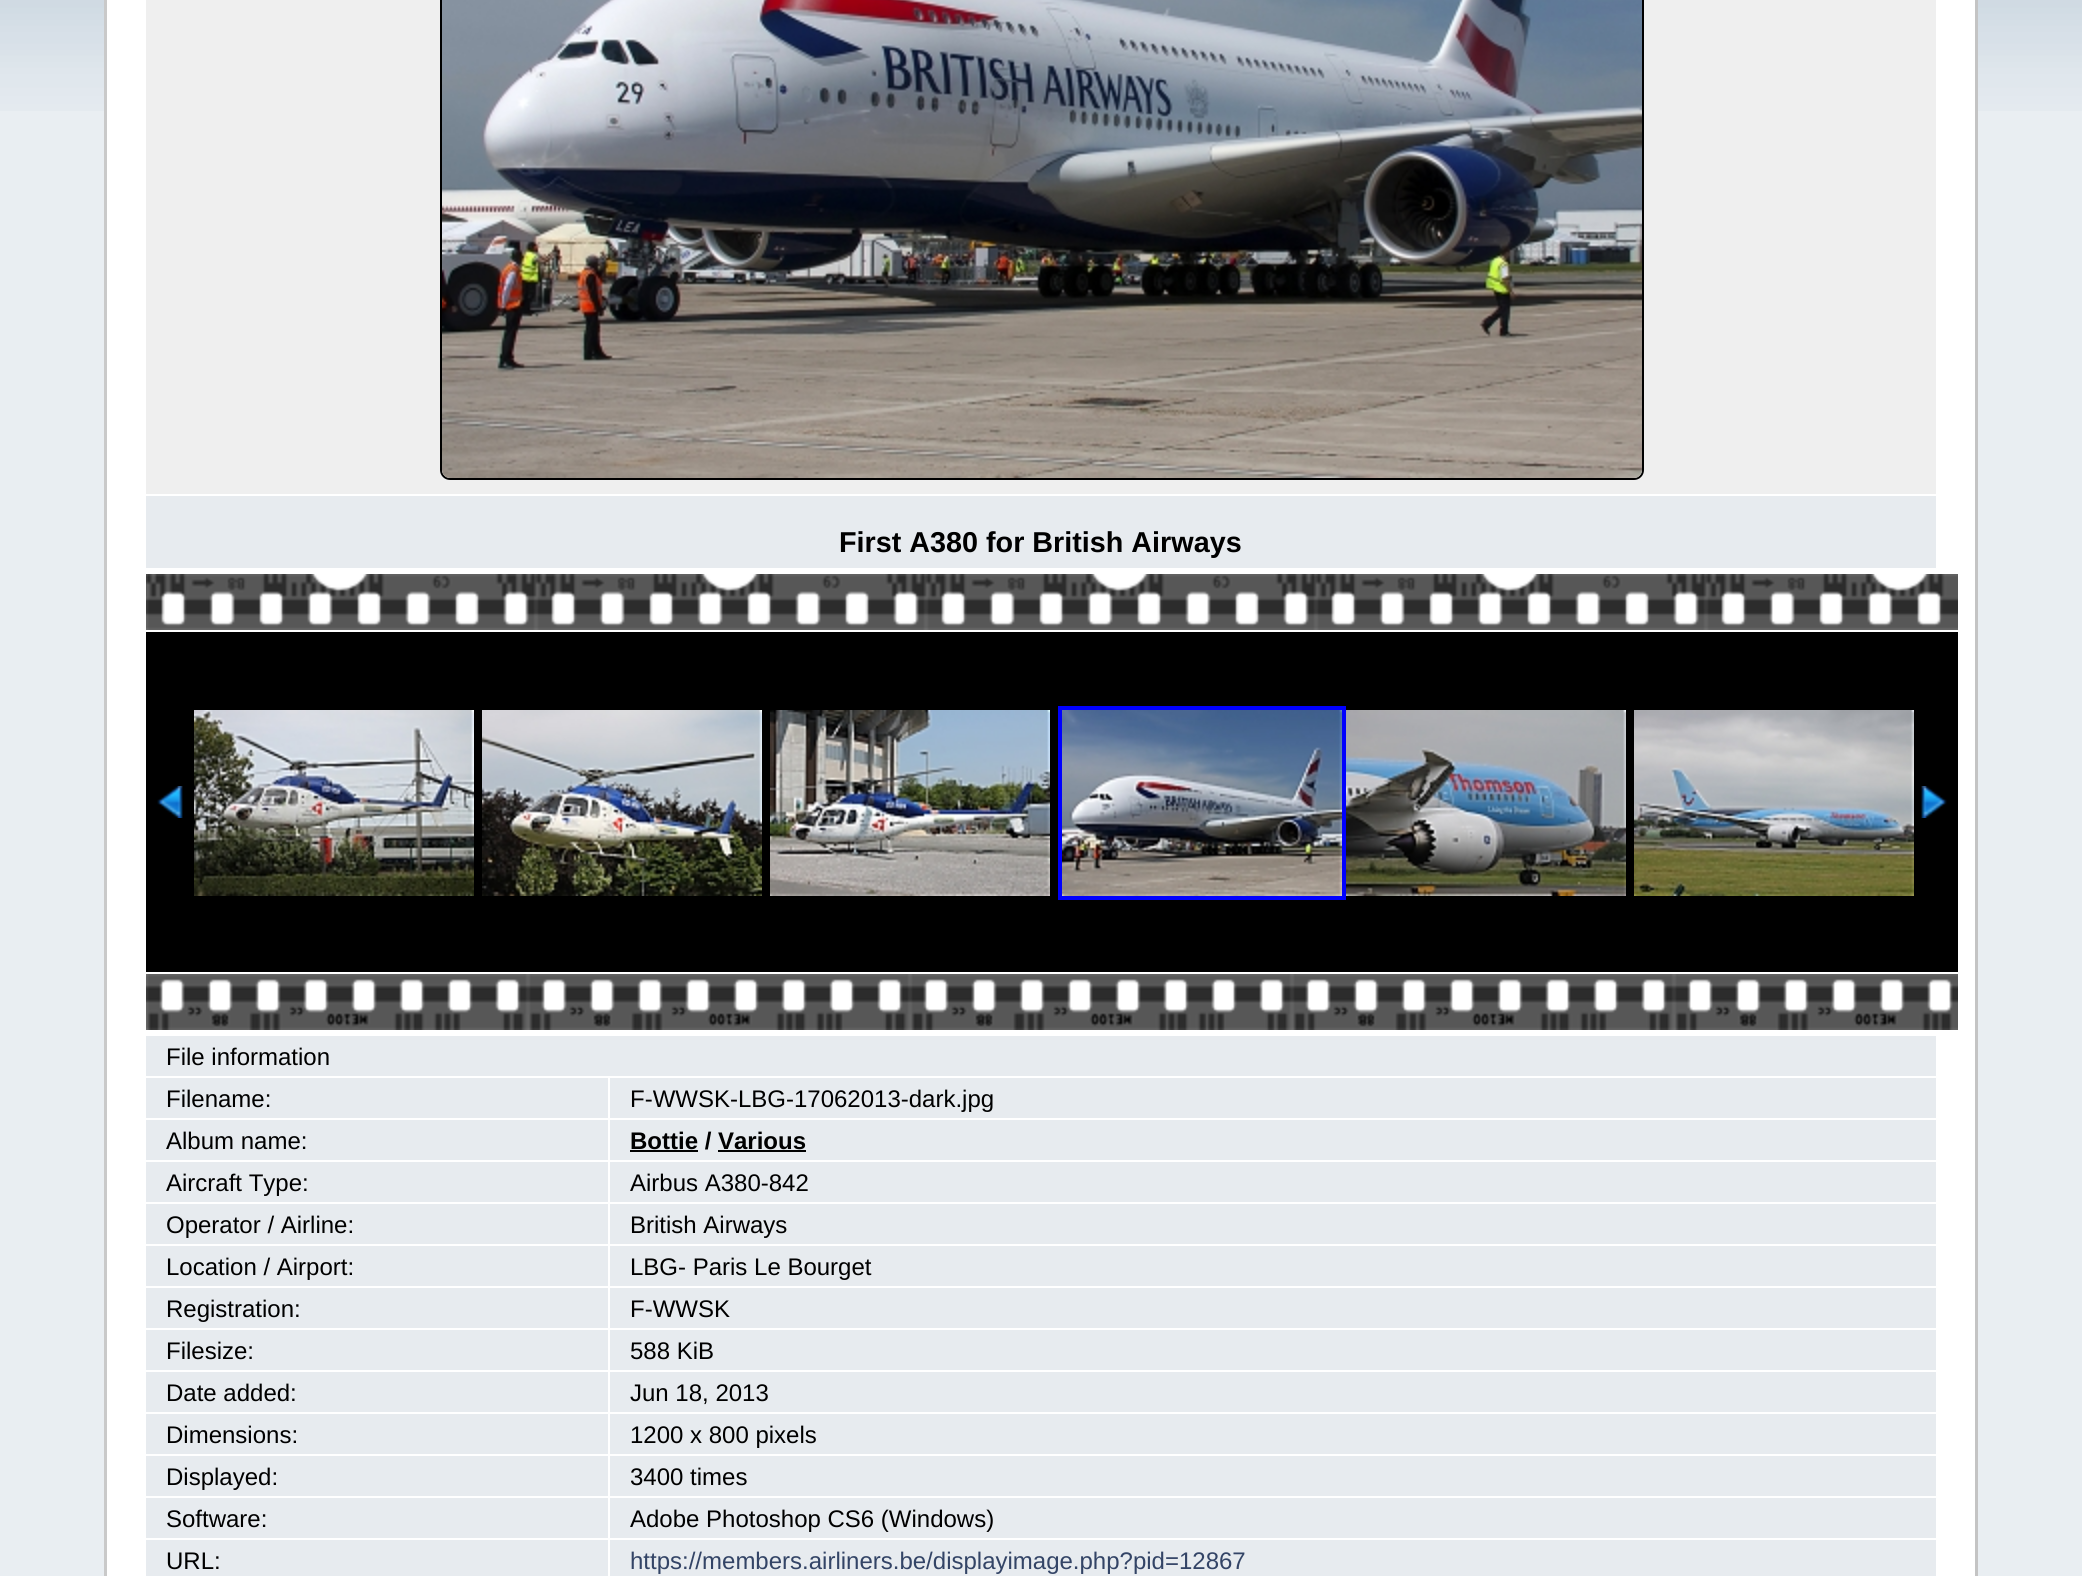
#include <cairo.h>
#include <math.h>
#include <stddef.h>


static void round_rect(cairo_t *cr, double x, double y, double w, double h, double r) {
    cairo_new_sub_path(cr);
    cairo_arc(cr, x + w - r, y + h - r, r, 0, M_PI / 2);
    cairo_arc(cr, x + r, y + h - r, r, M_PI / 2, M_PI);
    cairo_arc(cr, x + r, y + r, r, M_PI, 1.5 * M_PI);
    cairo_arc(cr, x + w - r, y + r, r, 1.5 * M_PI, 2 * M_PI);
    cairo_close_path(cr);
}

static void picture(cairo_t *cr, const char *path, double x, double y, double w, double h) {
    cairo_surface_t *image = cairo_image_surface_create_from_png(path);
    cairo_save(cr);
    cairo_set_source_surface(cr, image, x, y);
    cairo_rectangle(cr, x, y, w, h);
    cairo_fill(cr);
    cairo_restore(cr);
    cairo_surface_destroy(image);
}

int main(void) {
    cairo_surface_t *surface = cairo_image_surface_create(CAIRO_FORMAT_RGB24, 2082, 1576);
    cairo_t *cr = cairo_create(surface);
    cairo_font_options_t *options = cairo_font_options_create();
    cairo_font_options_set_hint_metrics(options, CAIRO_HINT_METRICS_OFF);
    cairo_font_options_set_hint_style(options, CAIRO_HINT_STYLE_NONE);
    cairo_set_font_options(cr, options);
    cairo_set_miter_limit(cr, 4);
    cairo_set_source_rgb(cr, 0.914, 0.933, 0.949);
    cairo_paint(cr);
    picture(cr, "img1.png", 0, 0, 2082, 111);
    cairo_set_source_rgb(cr, 1, 1, 1);
    cairo_rectangle(cr, 107, 0, 1868, 1576);
    cairo_fill(cr);
    cairo_set_source_rgb(cr, 0.788, 0.788, 0.788);
    cairo_rectangle(cr, 104, 0, 3, 1576);
    cairo_fill(cr);
    cairo_set_source_rgb(cr, 0.769, 0.769, 0.769);
    cairo_rectangle(cr, 1975, 0, 3, 1576);
    cairo_fill(cr);
    cairo_set_source_rgb(cr, 0.937, 0.937, 0.937);
    cairo_rectangle(cr, 146, 0, 1790, 494);
    cairo_fill(cr);
    round_rect(cr, 441, -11, 1202, 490, 9);
    cairo_set_source_rgb(cr, 0, 0, 0);
    cairo_stroke(cr);
    picture(cr, "img2.png", 442, 0, 1200, 478);
    cairo_set_source_rgb(cr, 0.906, 0.918, 0.937);
    cairo_rectangle(cr, 146, 496, 1790, 72);
    cairo_fill(cr);
    cairo_select_font_face(cr, "Liberation Sans", CAIRO_FONT_SLANT_NORMAL, CAIRO_FONT_WEIGHT_BOLD);
    cairo_set_font_size(cr, 28.75);
    cairo_set_source_rgb(cr, 0, 0, 0);
    cairo_move_to(cr, 839, 552);
    cairo_show_text(cr, "First A380 for British Airways");
    picture(cr, "img3.png", 146, 574, 1812, 56);
    cairo_rectangle(cr, 146, 632, 1812, 340);
    cairo_fill(cr);
    picture(cr, "img4.png", 157, 786, 26, 32);
    picture(cr, "img5.png", 194, 710, 280, 186);
    picture(cr, "img6.png", 482, 710, 280, 186);
    picture(cr, "img7.png", 770, 710, 280, 186);
    cairo_rectangle(cr, 1060, 708, 284, 190);
    cairo_set_source_rgb(cr, 0, 0, 1);
    cairo_set_line_width(cr, 4);
    cairo_stroke(cr);
    picture(cr, "img8.png", 1062, 710, 280, 186);
    picture(cr, "img9.png", 1346, 710, 280, 186);
    picture(cr, "img10.png", 1634, 710, 280, 186);
    picture(cr, "img11.png", 1921, 786, 26, 32);
    picture(cr, "img12.png", 146, 974, 1812, 56);
    cairo_set_source_rgb(cr, 0.906, 0.918, 0.937);
    cairo_rectangle(cr, 146, 1036, 1790, 40);
    cairo_fill(cr);
    cairo_select_font_face(cr, "Liberation Sans", CAIRO_FONT_SLANT_NORMAL, CAIRO_FONT_WEIGHT_NORMAL);
    cairo_set_font_size(cr, 24);
    cairo_set_source_rgb(cr, 0, 0, 0);
    cairo_move_to(cr, 166, 1065);
    cairo_show_text(cr, "File information");
    cairo_set_source_rgb(cr, 0.906, 0.918, 0.937);
    cairo_rectangle(cr, 146, 1078, 462, 40);
    cairo_fill(cr);
    cairo_set_source_rgb(cr, 0, 0, 0);
    cairo_move_to(cr, 166, 1107);
    cairo_show_text(cr, "Filename:");
    cairo_set_source_rgb(cr, 0.906, 0.918, 0.937);
    cairo_rectangle(cr, 610, 1078, 1326, 40);
    cairo_fill(cr);
    cairo_set_source_rgb(cr, 0, 0, 0);
    cairo_move_to(cr, 630, 1107);
    cairo_show_text(cr, "F-WWSK-LBG-17062013-dark.jpg");
    cairo_set_source_rgb(cr, 0.906, 0.918, 0.937);
    cairo_rectangle(cr, 146, 1120, 462, 40);
    cairo_fill(cr);
    cairo_set_source_rgb(cr, 0, 0, 0);
    cairo_move_to(cr, 166, 1149);
    cairo_show_text(cr, "Album name:");
    cairo_set_source_rgb(cr, 0.906, 0.918, 0.937);
    cairo_rectangle(cr, 610, 1120, 1326, 40);
    cairo_fill(cr);
    cairo_select_font_face(cr, "Liberation Sans", CAIRO_FONT_SLANT_NORMAL, CAIRO_FONT_WEIGHT_BOLD);
    cairo_set_source_rgb(cr, 0, 0, 0);
    cairo_move_to(cr, 630, 1149);
    cairo_show_text(cr, "Bottie / Various");
    cairo_rectangle(cr, 630, 1150, 68, 2);
    cairo_fill(cr);
    cairo_rectangle(cr, 718, 1150, 88, 2);
    cairo_fill(cr);
    cairo_set_source_rgb(cr, 0.906, 0.918, 0.937);
    cairo_rectangle(cr, 146, 1162, 462, 40);
    cairo_fill(cr);
    cairo_select_font_face(cr, "Liberation Sans", CAIRO_FONT_SLANT_NORMAL, CAIRO_FONT_WEIGHT_NORMAL);
    cairo_set_source_rgb(cr, 0, 0, 0);
    cairo_move_to(cr, 166, 1191);
    cairo_show_text(cr, "Aircraft Type:");
    cairo_set_source_rgb(cr, 0.906, 0.918, 0.937);
    cairo_rectangle(cr, 610, 1162, 1326, 40);
    cairo_fill(cr);
    cairo_set_source_rgb(cr, 0, 0, 0);
    cairo_move_to(cr, 630, 1191);
    cairo_show_text(cr, "Airbus A380-842");
    cairo_set_source_rgb(cr, 0.906, 0.918, 0.937);
    cairo_rectangle(cr, 146, 1204, 462, 40);
    cairo_fill(cr);
    cairo_set_source_rgb(cr, 0, 0, 0);
    cairo_move_to(cr, 166, 1233);
    cairo_show_text(cr, "Operator / Airline:");
    cairo_set_source_rgb(cr, 0.906, 0.918, 0.937);
    cairo_rectangle(cr, 610, 1204, 1326, 40);
    cairo_fill(cr);
    cairo_set_source_rgb(cr, 0, 0, 0);
    cairo_move_to(cr, 630, 1233);
    cairo_show_text(cr, "British Airways");
    cairo_set_source_rgb(cr, 0.906, 0.918, 0.937);
    cairo_rectangle(cr, 146, 1246, 462, 40);
    cairo_fill(cr);
    cairo_set_source_rgb(cr, 0, 0, 0);
    cairo_move_to(cr, 166, 1275);
    cairo_show_text(cr, "Location / Airport:");
    cairo_set_source_rgb(cr, 0.906, 0.918, 0.937);
    cairo_rectangle(cr, 610, 1246, 1326, 40);
    cairo_fill(cr);
    cairo_set_source_rgb(cr, 0, 0, 0);
    cairo_move_to(cr, 630, 1275);
    cairo_show_text(cr, "LBG- Paris Le Bourget");
    cairo_set_source_rgb(cr, 0.906, 0.918, 0.937);
    cairo_rectangle(cr, 146, 1288, 462, 40);
    cairo_fill(cr);
    cairo_set_source_rgb(cr, 0, 0, 0);
    cairo_move_to(cr, 166, 1317);
    cairo_show_text(cr, "Registration:");
    cairo_set_source_rgb(cr, 0.906, 0.918, 0.937);
    cairo_rectangle(cr, 610, 1288, 1326, 40);
    cairo_fill(cr);
    cairo_set_source_rgb(cr, 0, 0, 0);
    cairo_move_to(cr, 630, 1317);
    cairo_show_text(cr, "F-WWSK");
    cairo_set_source_rgb(cr, 0.906, 0.918, 0.937);
    cairo_rectangle(cr, 146, 1330, 462, 40);
    cairo_fill(cr);
    cairo_set_source_rgb(cr, 0, 0, 0);
    cairo_move_to(cr, 166, 1359);
    cairo_show_text(cr, "Filesize:");
    cairo_set_source_rgb(cr, 0.906, 0.918, 0.937);
    cairo_rectangle(cr, 610, 1330, 1326, 40);
    cairo_fill(cr);
    cairo_set_source_rgb(cr, 0, 0, 0);
    cairo_move_to(cr, 630, 1359);
    cairo_show_text(cr, "588 KiB");
    cairo_set_source_rgb(cr, 0.906, 0.918, 0.937);
    cairo_rectangle(cr, 146, 1372, 462, 40);
    cairo_fill(cr);
    cairo_set_source_rgb(cr, 0, 0, 0);
    cairo_move_to(cr, 166, 1401);
    cairo_show_text(cr, "Date added:");
    cairo_set_source_rgb(cr, 0.906, 0.918, 0.937);
    cairo_rectangle(cr, 610, 1372, 1326, 40);
    cairo_fill(cr);
    cairo_set_source_rgb(cr, 0, 0, 0);
    cairo_move_to(cr, 630, 1401);
    cairo_show_text(cr, "Jun 18, 2013");
    cairo_set_source_rgb(cr, 0.906, 0.918, 0.937);
    cairo_rectangle(cr, 146, 1414, 462, 40);
    cairo_fill(cr);
    cairo_set_source_rgb(cr, 0, 0, 0);
    cairo_move_to(cr, 166, 1443);
    cairo_show_text(cr, "Dimensions:");
    cairo_set_source_rgb(cr, 0.906, 0.918, 0.937);
    cairo_rectangle(cr, 610, 1414, 1326, 40);
    cairo_fill(cr);
    cairo_set_source_rgb(cr, 0, 0, 0);
    cairo_move_to(cr, 630, 1443);
    cairo_show_text(cr, "1200 x 800 pixels");
    cairo_set_source_rgb(cr, 0.906, 0.918, 0.937);
    cairo_rectangle(cr, 146, 1456, 462, 40);
    cairo_fill(cr);
    cairo_set_source_rgb(cr, 0, 0, 0);
    cairo_move_to(cr, 166, 1485);
    cairo_show_text(cr, "Displayed:");
    cairo_set_source_rgb(cr, 0.906, 0.918, 0.937);
    cairo_rectangle(cr, 610, 1456, 1326, 40);
    cairo_fill(cr);
    cairo_set_source_rgb(cr, 0, 0, 0);
    cairo_move_to(cr, 630, 1485);
    cairo_show_text(cr, "3400 times");
    cairo_set_source_rgb(cr, 0.906, 0.918, 0.937);
    cairo_rectangle(cr, 146, 1498, 462, 40);
    cairo_fill(cr);
    cairo_set_source_rgb(cr, 0, 0, 0);
    cairo_move_to(cr, 166, 1527);
    cairo_show_text(cr, "Software:");
    cairo_set_source_rgb(cr, 0.906, 0.918, 0.937);
    cairo_rectangle(cr, 610, 1498, 1326, 40);
    cairo_fill(cr);
    cairo_set_source_rgb(cr, 0, 0, 0);
    cairo_move_to(cr, 630, 1527);
    cairo_show_text(cr, "Adobe Photoshop CS6 (Windows)");
    cairo_set_source_rgb(cr, 0.906, 0.918, 0.937);
    cairo_rectangle(cr, 146, 1540, 462, 36);
    cairo_fill(cr);
    cairo_set_source_rgb(cr, 0, 0, 0);
    cairo_move_to(cr, 166, 1569);
    cairo_show_text(cr, "URL:");
    cairo_set_source_rgb(cr, 0.906, 0.918, 0.937);
    cairo_rectangle(cr, 610, 1540, 1326, 36);
    cairo_fill(cr);
    cairo_set_source_rgb(cr, 0.2, 0.267, 0.4);
    cairo_move_to(cr, 630, 1569);
    cairo_show_text(cr, "https://members.airliners.be/displayimage.php?pid=12867");
    cairo_surface_write_to_png(surface, "page.png");
    cairo_font_options_destroy(options);
    cairo_destroy(cr);
    cairo_surface_destroy(surface);
    return 0;
}
